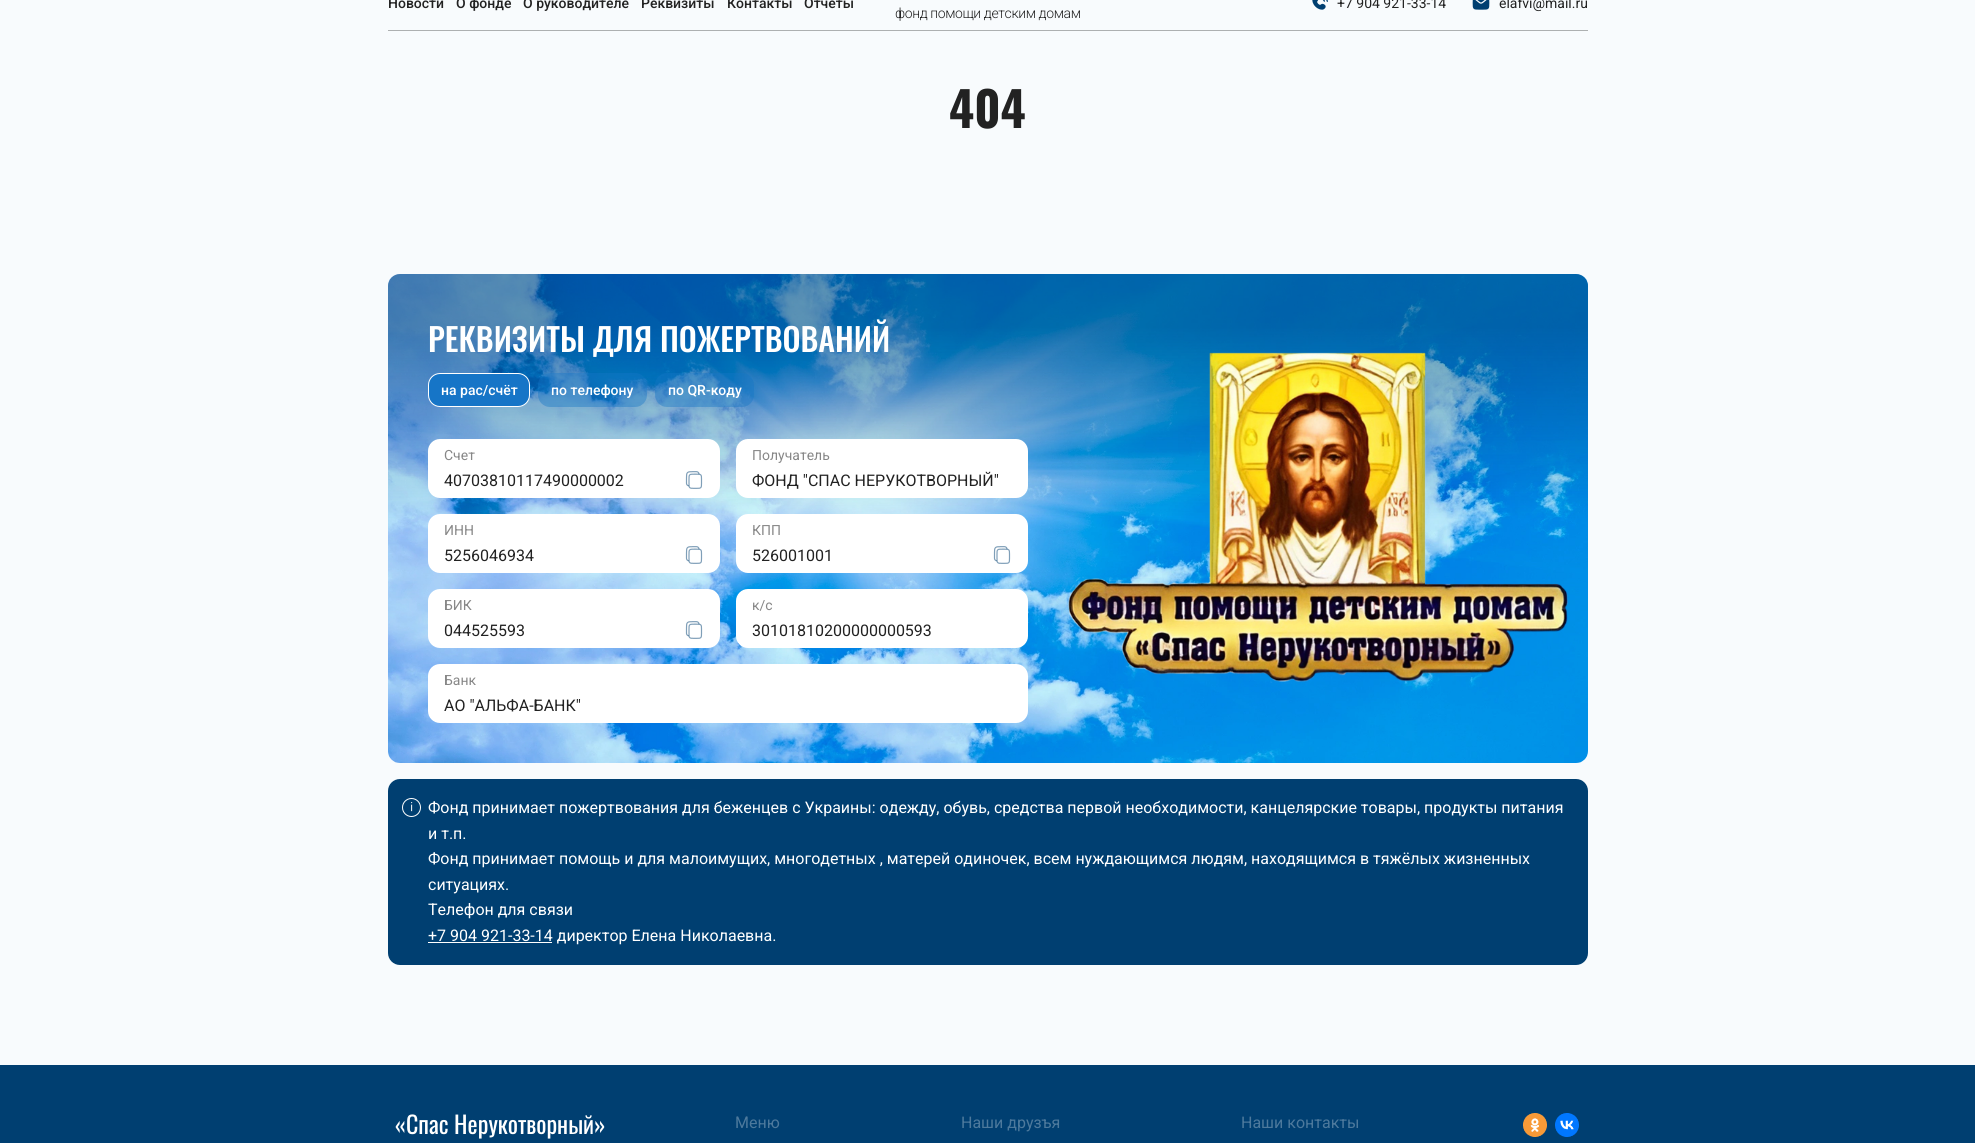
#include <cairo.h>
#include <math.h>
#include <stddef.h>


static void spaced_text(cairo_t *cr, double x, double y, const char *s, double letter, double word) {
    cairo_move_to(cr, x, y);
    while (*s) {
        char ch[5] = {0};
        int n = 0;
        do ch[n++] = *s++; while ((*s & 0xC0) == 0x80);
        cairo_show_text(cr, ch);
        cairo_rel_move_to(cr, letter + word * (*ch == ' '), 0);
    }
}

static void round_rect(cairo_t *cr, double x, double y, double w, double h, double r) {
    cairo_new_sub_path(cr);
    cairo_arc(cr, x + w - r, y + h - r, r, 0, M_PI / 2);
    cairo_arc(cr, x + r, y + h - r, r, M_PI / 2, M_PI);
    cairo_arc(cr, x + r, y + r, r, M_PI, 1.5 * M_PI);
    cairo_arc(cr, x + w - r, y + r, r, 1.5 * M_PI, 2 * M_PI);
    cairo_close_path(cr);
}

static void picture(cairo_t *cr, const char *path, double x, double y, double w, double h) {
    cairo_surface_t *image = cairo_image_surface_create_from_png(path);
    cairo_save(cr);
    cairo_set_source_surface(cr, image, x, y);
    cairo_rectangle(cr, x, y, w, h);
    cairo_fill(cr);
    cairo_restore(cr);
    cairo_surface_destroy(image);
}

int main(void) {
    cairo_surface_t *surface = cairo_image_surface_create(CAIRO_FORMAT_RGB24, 1975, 1143);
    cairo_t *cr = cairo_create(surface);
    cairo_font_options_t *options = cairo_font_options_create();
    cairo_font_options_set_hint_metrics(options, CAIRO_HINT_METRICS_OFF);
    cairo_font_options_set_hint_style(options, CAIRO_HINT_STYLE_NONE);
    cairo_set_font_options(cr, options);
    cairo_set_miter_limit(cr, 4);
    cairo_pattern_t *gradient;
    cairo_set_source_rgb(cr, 0.969, 0.984, 0.992);
    cairo_paint(cr);
    cairo_set_source_rgb(cr, 0.678, 0.69, 0.694);
    cairo_rectangle(cr, 388, 30, 1200, 1);
    cairo_fill(cr);
    cairo_select_font_face(cr, "Roboto Medium", CAIRO_FONT_SLANT_NORMAL, CAIRO_FONT_WEIGHT_NORMAL);
    cairo_set_font_size(cr, 14);
    cairo_set_source_rgb(cr, 0.133, 0.133, 0.133);
    cairo_move_to(cr, 388, 8);
    cairo_show_text(cr, "Новости");
    cairo_move_to(cr, 456, 8);
    cairo_show_text(cr, "О фонде");
    cairo_move_to(cr, 523, 8);
    cairo_show_text(cr, "О руководителе");
    cairo_move_to(cr, 641, 8);
    cairo_show_text(cr, "Реквизиты");
    cairo_move_to(cr, 727, 8);
    cairo_show_text(cr, "Контакты");
    cairo_move_to(cr, 804, 8);
    cairo_show_text(cr, "Отчеты");
    cairo_select_font_face(cr, "Roboto Light", CAIRO_FONT_SLANT_NORMAL, CAIRO_FONT_WEIGHT_NORMAL);
    spaced_text(cr, 895, 18, "фонд помощи детским домам", -0.4, 0);
    picture(cr, "img1.png", 1312, 0, 16, 10);
    cairo_select_font_face(cr, "Roboto", CAIRO_FONT_SLANT_NORMAL, CAIRO_FONT_WEIGHT_NORMAL);
    cairo_move_to(cr, 1337, 8);
    cairo_show_text(cr, "+7 904 921-33-14");
    picture(cr, "img2.png", 1472, 0, 18, 10);
    cairo_move_to(cr, 1499, 8);
    cairo_show_text(cr, "elafvi@mail.ru");
    cairo_select_font_face(cr, "Oswald", CAIRO_FONT_SLANT_NORMAL, CAIRO_FONT_WEIGHT_BOLD);
    cairo_set_font_size(cr, 48);
    cairo_move_to(cr, 949, 128);
    cairo_show_text(cr, "404");
    picture(cr, "img3.png", 388, 274, 1200, 489);
    gradient = cairo_pattern_create_linear(988, 274, 988, 763);
    cairo_pattern_add_color_stop_rgba(gradient, 0, 0, 0.247, 0.443, 0.5);
    cairo_pattern_add_color_stop_rgba(gradient, 0.11, 0, 0.247, 0.443, 0.5);
    cairo_pattern_add_color_stop_rgba(gradient, 0.5, 0, 0.247, 0.443, 0);
    cairo_pattern_add_color_stop_rgba(gradient, 1, 0, 0.247, 0.443, 0);
    cairo_set_source(cr, gradient);
    cairo_pattern_destroy(gradient);
    round_rect(cr, 388, 274, 1200, 489, 12);
    cairo_fill(cr);
    cairo_select_font_face(cr, "Oswald Medium", CAIRO_FONT_SLANT_NORMAL, CAIRO_FONT_WEIGHT_NORMAL);
    cairo_set_font_size(cr, 32);
    cairo_set_source_rgb(cr, 1, 1, 1);
    cairo_move_to(cr, 428, 352);
    cairo_show_text(cr, "РЕКВИЗИТЫ ДЛЯ ПОЖЕРТВОВАНИЙ");
    cairo_set_source_rgb(cr, 0.086, 0.459, 0.78);
    round_rect(cr, 428.5, 373.5, 101, 33, 11.5);
    cairo_fill_preserve(cr);
    cairo_set_source_rgb(cr, 1, 1, 1);
    cairo_set_line_width(cr, 1);
    cairo_stroke(cr);
    cairo_select_font_face(cr, "Roboto Medium", CAIRO_FONT_SLANT_NORMAL, CAIRO_FONT_WEIGHT_NORMAL);
    cairo_set_font_size(cr, 14);
    cairo_move_to(cr, 441, 395);
    cairo_show_text(cr, "на рас/счёт");
    cairo_set_source_rgba(cr, 0.086, 0.459, 0.78, 0.4);
    round_rect(cr, 538, 373, 109, 34, 12);
    cairo_fill(cr);
    cairo_set_source_rgb(cr, 1, 1, 1);
    cairo_move_to(cr, 551, 395);
    cairo_show_text(cr, "по телефону");
    cairo_set_source_rgba(cr, 0.086, 0.459, 0.78, 0.4);
    round_rect(cr, 655, 373, 99, 34, 12);
    cairo_fill(cr);
    cairo_set_source_rgb(cr, 1, 1, 1);
    cairo_move_to(cr, 668, 395);
    cairo_show_text(cr, "по QR-коду");
    round_rect(cr, 428, 439, 292, 59, 12);
    cairo_fill(cr);
    cairo_select_font_face(cr, "Roboto", CAIRO_FONT_SLANT_NORMAL, CAIRO_FONT_WEIGHT_NORMAL);
    cairo_set_source_rgb(cr, 0.529, 0.529, 0.529);
    cairo_move_to(cr, 444, 460);
    cairo_show_text(cr, "Счет");
    cairo_set_font_size(cr, 16);
    cairo_set_source_rgb(cr, 0.133, 0.133, 0.133);
    cairo_move_to(cr, 444, 486);
    cairo_show_text(cr, "40703810117490000002");
    picture(cr, "img4.png", 685, 471, 18, 18);
    cairo_set_source_rgb(cr, 1, 1, 1);
    round_rect(cr, 736, 439, 292, 59, 12);
    cairo_fill(cr);
    cairo_set_font_size(cr, 14);
    cairo_set_source_rgb(cr, 0.529, 0.529, 0.529);
    cairo_move_to(cr, 752, 460);
    cairo_show_text(cr, "Получатель");
    cairo_set_font_size(cr, 16);
    cairo_set_source_rgb(cr, 0.133, 0.133, 0.133);
    cairo_move_to(cr, 752, 486);
    cairo_show_text(cr, "ФОНД \"СПАС НЕРУКОТВОРНЫЙ\"");
    cairo_set_source_rgb(cr, 1, 1, 1);
    round_rect(cr, 428, 514, 292, 59, 12);
    cairo_fill(cr);
    cairo_set_font_size(cr, 14);
    cairo_set_source_rgb(cr, 0.529, 0.529, 0.529);
    cairo_move_to(cr, 444, 535);
    cairo_show_text(cr, "ИНН");
    cairo_set_font_size(cr, 16);
    cairo_set_source_rgb(cr, 0.133, 0.133, 0.133);
    cairo_move_to(cr, 444, 561);
    cairo_show_text(cr, "5256046934");
    picture(cr, "img4.png", 685, 546, 18, 18);
    cairo_set_source_rgb(cr, 1, 1, 1);
    round_rect(cr, 736, 514, 292, 59, 12);
    cairo_fill(cr);
    cairo_set_font_size(cr, 14);
    cairo_set_source_rgb(cr, 0.529, 0.529, 0.529);
    cairo_move_to(cr, 752, 535);
    cairo_show_text(cr, "КПП");
    cairo_set_font_size(cr, 16);
    cairo_set_source_rgb(cr, 0.133, 0.133, 0.133);
    cairo_move_to(cr, 752, 561);
    cairo_show_text(cr, "526001001");
    picture(cr, "img4.png", 993, 546, 18, 18);
    cairo_set_source_rgb(cr, 1, 1, 1);
    round_rect(cr, 428, 589, 292, 59, 12);
    cairo_fill(cr);
    cairo_set_font_size(cr, 14);
    cairo_set_source_rgb(cr, 0.529, 0.529, 0.529);
    cairo_move_to(cr, 444, 610);
    cairo_show_text(cr, "БИК");
    cairo_set_font_size(cr, 16);
    cairo_set_source_rgb(cr, 0.133, 0.133, 0.133);
    cairo_move_to(cr, 444, 636);
    cairo_show_text(cr, "044525593");
    picture(cr, "img4.png", 685, 621, 18, 18);
    cairo_set_source_rgb(cr, 1, 1, 1);
    round_rect(cr, 736, 589, 292, 59, 12);
    cairo_fill(cr);
    cairo_set_font_size(cr, 14);
    cairo_set_source_rgb(cr, 0.529, 0.529, 0.529);
    cairo_move_to(cr, 752, 610);
    cairo_show_text(cr, "к/с");
    cairo_set_font_size(cr, 16);
    cairo_set_source_rgb(cr, 0.133, 0.133, 0.133);
    cairo_move_to(cr, 752, 636);
    cairo_show_text(cr, "30101810200000000593");
    cairo_set_source_rgb(cr, 1, 1, 1);
    round_rect(cr, 428, 664, 600, 59, 12);
    cairo_fill(cr);
    cairo_set_font_size(cr, 14);
    cairo_set_source_rgb(cr, 0.529, 0.529, 0.529);
    cairo_move_to(cr, 444, 685);
    cairo_show_text(cr, "Банк");
    cairo_set_font_size(cr, 16);
    cairo_set_source_rgb(cr, 0.133, 0.133, 0.133);
    cairo_move_to(cr, 444, 711);
    cairo_show_text(cr, "АО \"АЛЬФА-БАНК\"");
    picture(cr, "img5.png", 1068, 352, 500, 331);
    cairo_set_source_rgb(cr, 0, 0.247, 0.443);
    round_rect(cr, 388, 779, 1200, 186, 12);
    cairo_fill(cr);
    picture(cr, "img6.png", 402, 798, 19, 19);
    cairo_set_source_rgb(cr, 1, 1, 1);
    cairo_move_to(cr, 428, 813);
    cairo_show_text(cr, "Фонд принимает пожертвования для беженцев с Украины: одежду, обувь, средства первой необходимости, канцелярские товары, продукты питания");
    cairo_move_to(cr, 428, 839);
    cairo_show_text(cr, "и т.п.");
    cairo_move_to(cr, 428, 864);
    cairo_show_text(cr, "Фонд принимает помощь и для малоимущих, многодетных , матерей одиночек, всем нуждающимся людям, находящимся в тяжёлых жизненных");
    cairo_move_to(cr, 428, 890);
    cairo_show_text(cr, "ситуациях.");
    cairo_move_to(cr, 428, 915);
    cairo_show_text(cr, "Телефон для связи");
    cairo_rectangle(cr, 428, 942, 124, 1);
    cairo_fill(cr);
    cairo_move_to(cr, 428, 941);
    cairo_show_text(cr, "+7 904 921-33-14 директор Елена Николаевна.");
    cairo_set_source_rgb(cr, 0, 0.247, 0.443);
    cairo_rectangle(cr, 0, 1065, 1975, 78);
    cairo_fill(cr);
    cairo_select_font_face(cr, "Oswald", CAIRO_FONT_SLANT_NORMAL, CAIRO_FONT_WEIGHT_NORMAL);
    cairo_set_font_size(cr, 24);
    cairo_set_source_rgb(cr, 1, 1, 1);
    cairo_move_to(cr, 395, 1134);
    cairo_show_text(cr, "«Спас Нерукотворный»");
    cairo_select_font_face(cr, "Roboto", CAIRO_FONT_SLANT_NORMAL, CAIRO_FONT_WEIGHT_NORMAL);
    cairo_set_font_size(cr, 16);
    cairo_set_source_rgb(cr, 0.302, 0.475, 0.612);
    cairo_move_to(cr, 735, 1128);
    cairo_show_text(cr, "Меню");
    cairo_move_to(cr, 961, 1128);
    cairo_show_text(cr, "Наши друзъя");
    cairo_move_to(cr, 1241, 1128);
    cairo_show_text(cr, "Наши контакты");
    picture(cr, "img7.png", 1523, 1113, 24, 24);
    picture(cr, "img8.png", 1555, 1113, 24, 24);
    cairo_surface_write_to_png(surface, "page.png");
    cairo_font_options_destroy(options);
    cairo_destroy(cr);
    cairo_surface_destroy(surface);
    return 0;
}
